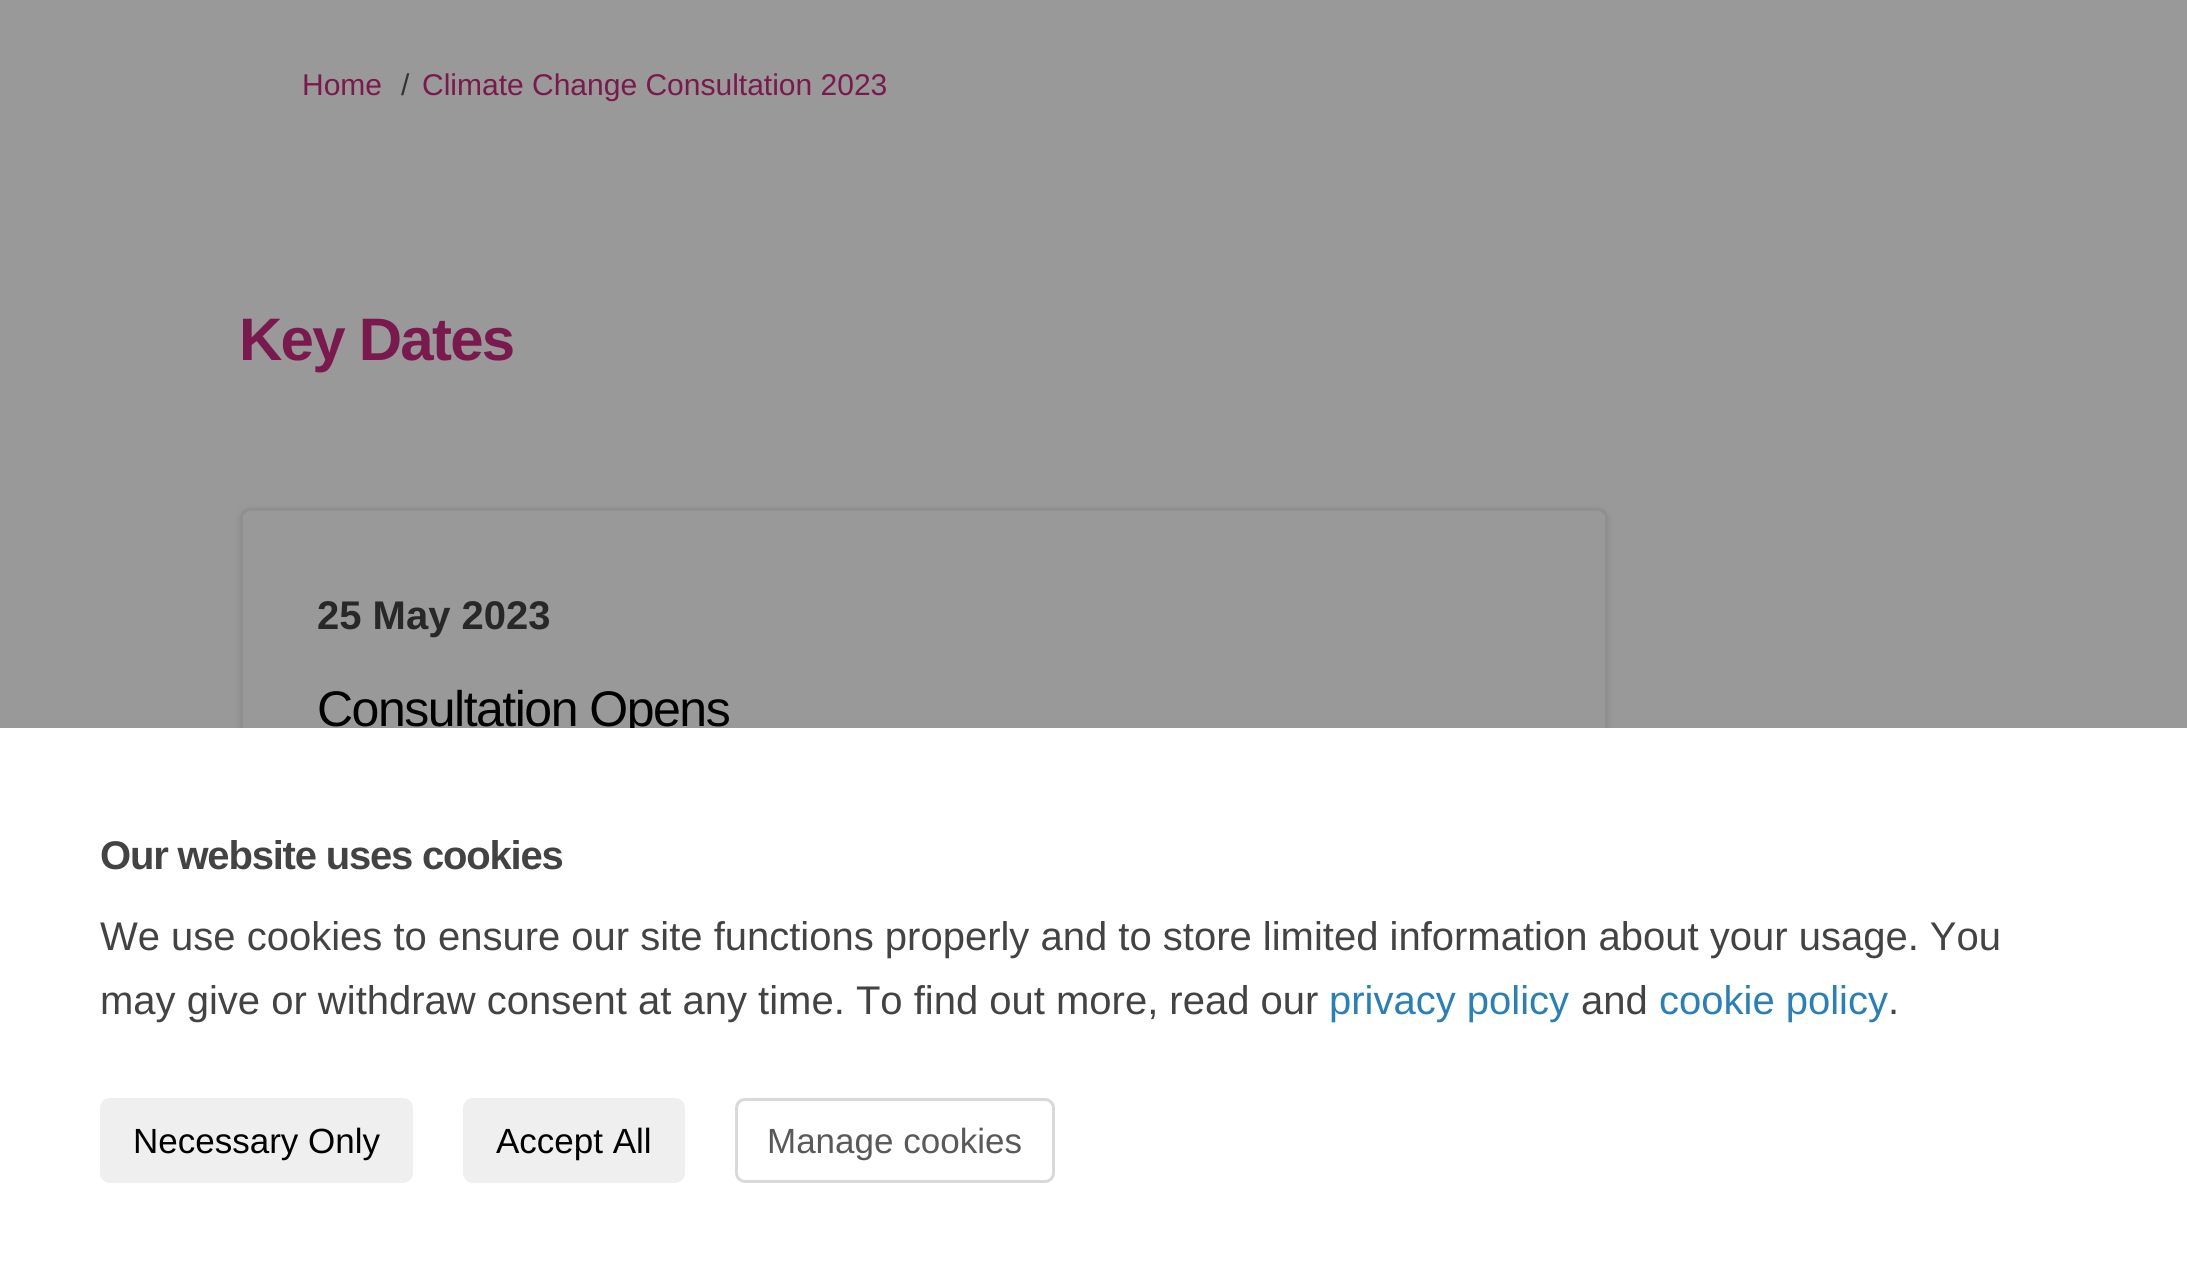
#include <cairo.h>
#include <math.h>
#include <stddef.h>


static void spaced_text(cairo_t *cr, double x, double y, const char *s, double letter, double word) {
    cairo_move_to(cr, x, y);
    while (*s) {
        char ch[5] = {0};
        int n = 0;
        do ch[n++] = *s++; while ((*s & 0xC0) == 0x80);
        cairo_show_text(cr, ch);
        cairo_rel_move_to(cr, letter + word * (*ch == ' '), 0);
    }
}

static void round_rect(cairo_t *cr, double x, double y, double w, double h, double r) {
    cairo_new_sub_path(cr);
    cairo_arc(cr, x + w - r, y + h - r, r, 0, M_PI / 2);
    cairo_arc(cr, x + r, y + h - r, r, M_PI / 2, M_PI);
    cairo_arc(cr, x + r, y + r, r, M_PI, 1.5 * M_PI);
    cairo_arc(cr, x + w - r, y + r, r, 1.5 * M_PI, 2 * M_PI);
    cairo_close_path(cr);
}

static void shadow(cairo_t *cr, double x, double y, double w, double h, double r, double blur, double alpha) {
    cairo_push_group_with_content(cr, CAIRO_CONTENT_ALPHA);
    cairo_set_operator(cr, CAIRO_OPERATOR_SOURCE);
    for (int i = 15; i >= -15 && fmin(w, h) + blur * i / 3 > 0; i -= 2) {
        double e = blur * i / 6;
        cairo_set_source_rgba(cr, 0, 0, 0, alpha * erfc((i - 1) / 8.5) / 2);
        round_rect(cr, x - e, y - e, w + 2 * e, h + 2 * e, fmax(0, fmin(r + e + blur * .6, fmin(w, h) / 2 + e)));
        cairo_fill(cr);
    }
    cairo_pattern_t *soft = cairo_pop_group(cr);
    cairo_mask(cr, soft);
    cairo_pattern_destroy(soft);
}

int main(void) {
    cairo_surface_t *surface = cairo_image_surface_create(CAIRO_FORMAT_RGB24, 2187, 1281);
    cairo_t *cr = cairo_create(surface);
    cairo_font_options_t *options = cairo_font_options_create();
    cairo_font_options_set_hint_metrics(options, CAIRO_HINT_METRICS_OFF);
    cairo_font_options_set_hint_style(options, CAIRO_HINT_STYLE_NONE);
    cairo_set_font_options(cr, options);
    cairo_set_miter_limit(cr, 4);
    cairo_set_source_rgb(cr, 0.6, 0.6, 0.6);
    cairo_paint(cr);
    cairo_select_font_face(cr, "Liberation Sans", CAIRO_FONT_SLANT_NORMAL, CAIRO_FONT_WEIGHT_NORMAL);
    cairo_set_font_size(cr, 30);
    cairo_set_source_rgb(cr, 0.478, 0.098, 0.302);
    cairo_move_to(cr, 302, 95);
    cairo_show_text(cr, "Home");
    cairo_set_source_rgb(cr, 0.2, 0.2, 0.2);
    cairo_move_to(cr, 401, 95);
    cairo_show_text(cr, "/");
    cairo_set_source_rgb(cr, 0.478, 0.098, 0.302);
    cairo_move_to(cr, 422, 95);
    cairo_show_text(cr, "Climate Change Consultation 2023");
    cairo_select_font_face(cr, "Liberation Sans", CAIRO_FONT_SLANT_NORMAL, CAIRO_FONT_WEIGHT_BOLD);
    cairo_set_font_size(cr, 60);
    spaced_text(cr, 239, 360, "Key Dates", -1.75, 0);
    cairo_set_source_rgb(cr, 0, 0, 0);
    shadow(cr, 240, 510, 1368, 288, 10, 4, 0.1);
    cairo_set_source_rgb(cr, 0.6, 0.6, 0.6);
    round_rect(cr, 241.5, 509.5, 1365, 284, 8.5);
    cairo_fill_preserve(cr);
    cairo_set_source_rgb(cr, 0.561, 0.561, 0.561);
    cairo_set_line_width(cr, 3);
    cairo_stroke(cr);
    cairo_set_font_size(cr, 40);
    cairo_set_source_rgb(cr, 0.157, 0.157, 0.157);
    cairo_move_to(cr, 317, 629);
    cairo_show_text(cr, "25 May 2023");
    cairo_select_font_face(cr, "Liberation Sans", CAIRO_FONT_SLANT_NORMAL, CAIRO_FONT_WEIGHT_NORMAL);
    cairo_set_font_size(cr, 50);
    cairo_set_source_rgb(cr, 0, 0, 0);
    spaced_text(cr, 317, 726, "Consultation Opens", -1.5, 0);
    cairo_set_source_rgb(cr, 1, 1, 1);
    cairo_rectangle(cr, 0, 728, 2187, 553);
    cairo_fill(cr);
    cairo_select_font_face(cr, "Liberation Sans", CAIRO_FONT_SLANT_NORMAL, CAIRO_FONT_WEIGHT_BOLD);
    cairo_set_font_size(cr, 40);
    cairo_set_source_rgb(cr, 0.263, 0.263, 0.263);
    spaced_text(cr, 100, 869, "Our website uses cookies", -1.2, 0);
    cairo_select_font_face(cr, "Liberation Sans", CAIRO_FONT_SLANT_NORMAL, CAIRO_FONT_WEIGHT_NORMAL);
    cairo_move_to(cr, 100, 950);
    cairo_show_text(cr, "We use cookies to ensure our site functions properly and to store limited information about your usage. You");
    cairo_move_to(cr, 100, 1014);
    cairo_show_text(cr, "may give or withdraw consent at any time. To find out more, read our");
    cairo_set_source_rgb(cr, 0.161, 0.502, 0.725);
    cairo_move_to(cr, 1329, 1014);
    cairo_show_text(cr, "privacy policy");
    cairo_set_source_rgb(cr, 0.263, 0.263, 0.263);
    cairo_move_to(cr, 1581, 1014);
    cairo_show_text(cr, "and");
    cairo_set_source_rgb(cr, 0.161, 0.502, 0.725);
    cairo_move_to(cr, 1659, 1014);
    cairo_show_text(cr, "cookie policy");
    cairo_set_source_rgb(cr, 0.263, 0.263, 0.263);
    cairo_move_to(cr, 1888, 1014);
    cairo_show_text(cr, ".");
    cairo_set_source_rgb(cr, 0.937, 0.937, 0.937);
    round_rect(cr, 100, 1098, 313, 85, 10);
    cairo_fill(cr);
    cairo_set_font_size(cr, 35);
    cairo_set_source_rgb(cr, 0, 0, 0);
    cairo_move_to(cr, 133, 1153);
    cairo_show_text(cr, "Necessary Only");
    cairo_set_source_rgb(cr, 0.937, 0.937, 0.937);
    round_rect(cr, 463, 1098, 222, 85, 10);
    cairo_fill(cr);
    cairo_set_source_rgb(cr, 0, 0, 0);
    cairo_move_to(cr, 496, 1153);
    cairo_show_text(cr, "Accept All");
    round_rect(cr, 736.5, 1099.5, 317, 82, 8.5);
    cairo_set_source_rgb(cr, 0.851, 0.851, 0.851);
    cairo_stroke(cr);
    cairo_set_source_rgb(cr, 0.349, 0.349, 0.349);
    cairo_move_to(cr, 767, 1153);
    cairo_show_text(cr, "Manage cookies");
    cairo_surface_write_to_png(surface, "page.png");
    cairo_font_options_destroy(options);
    cairo_destroy(cr);
    cairo_surface_destroy(surface);
    return 0;
}
